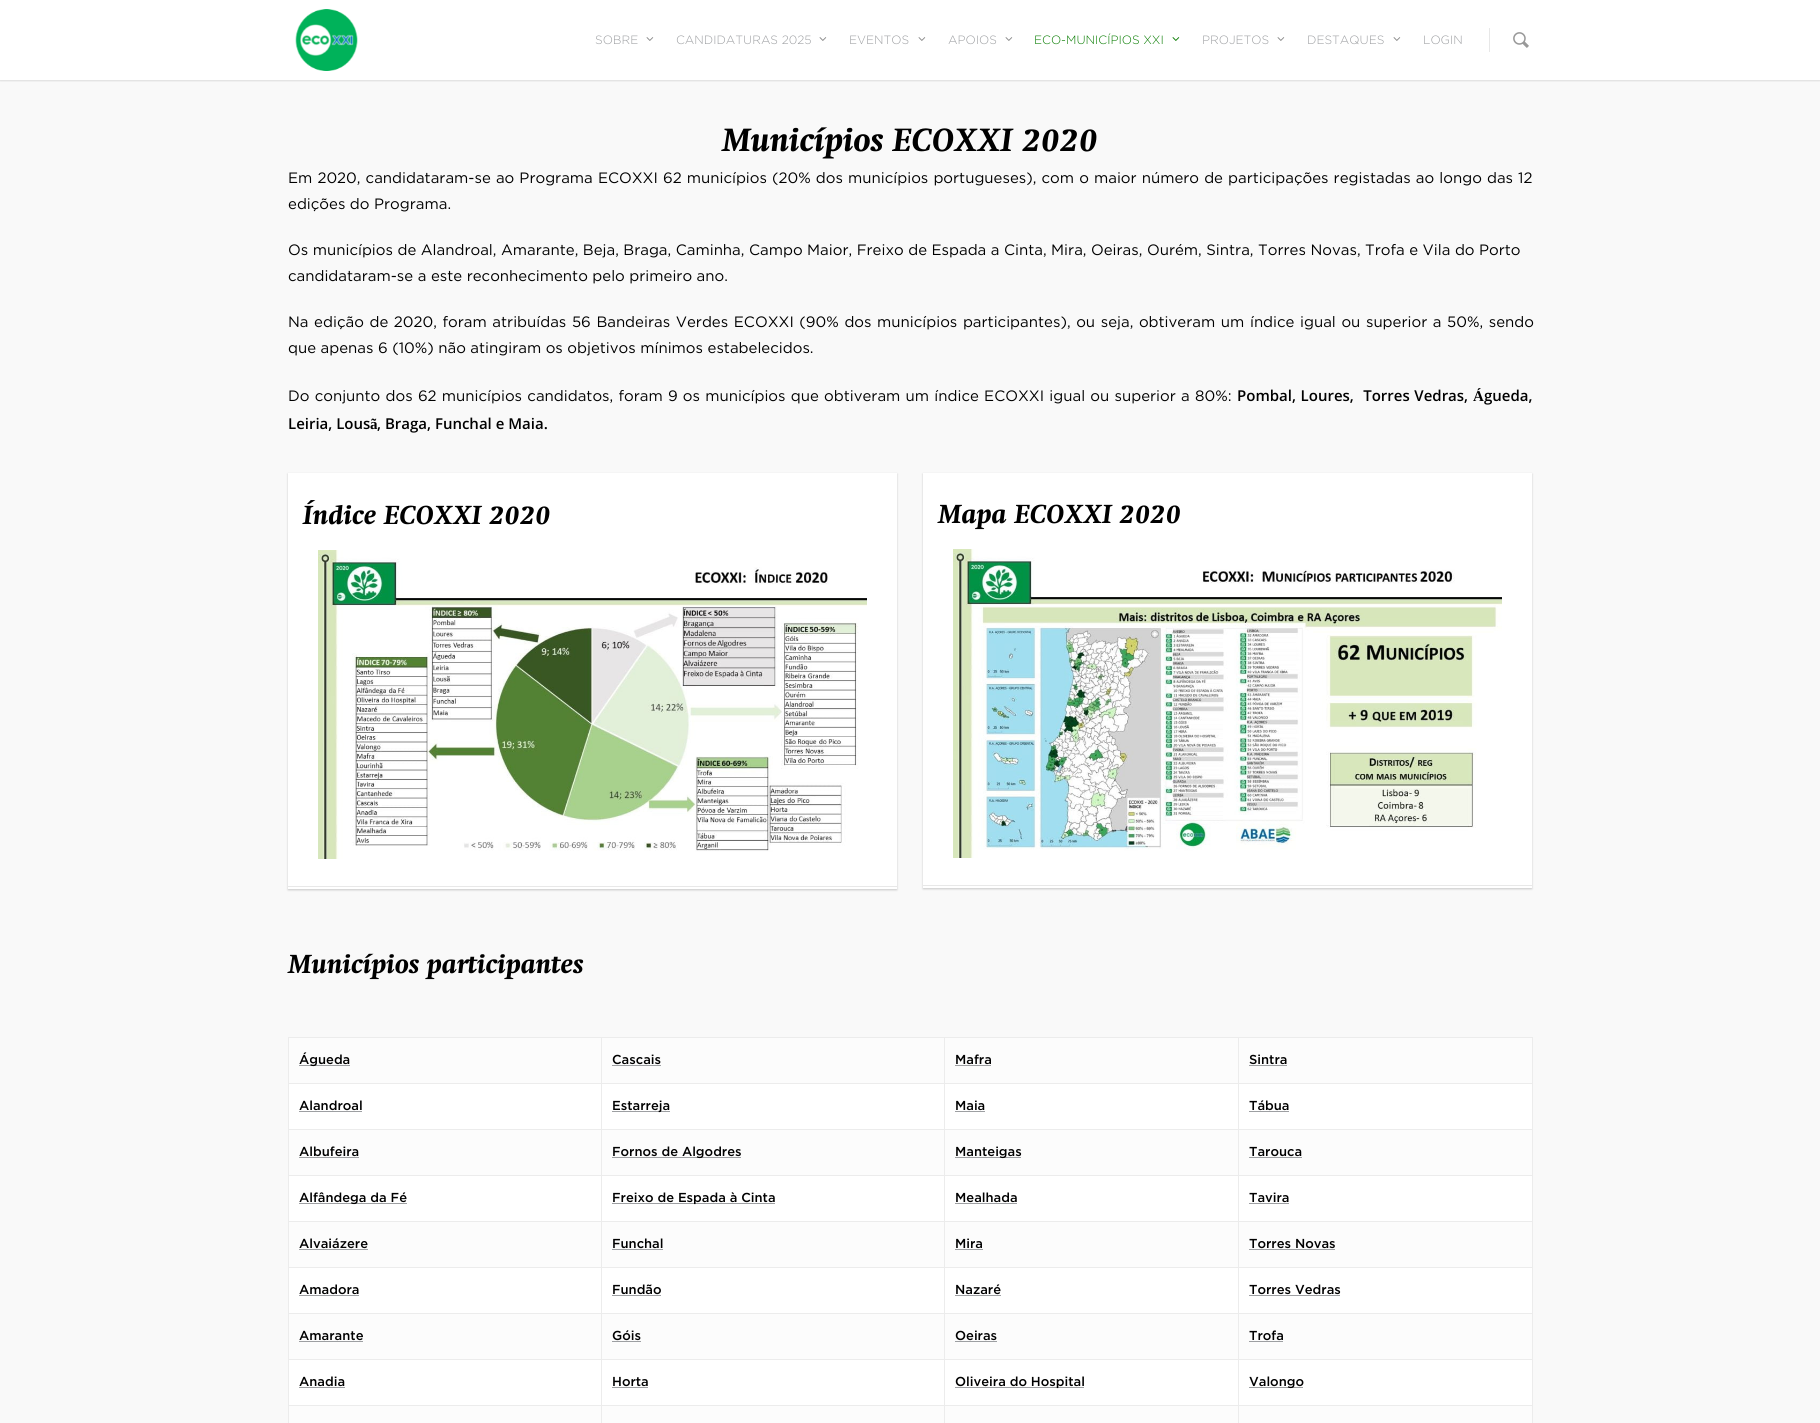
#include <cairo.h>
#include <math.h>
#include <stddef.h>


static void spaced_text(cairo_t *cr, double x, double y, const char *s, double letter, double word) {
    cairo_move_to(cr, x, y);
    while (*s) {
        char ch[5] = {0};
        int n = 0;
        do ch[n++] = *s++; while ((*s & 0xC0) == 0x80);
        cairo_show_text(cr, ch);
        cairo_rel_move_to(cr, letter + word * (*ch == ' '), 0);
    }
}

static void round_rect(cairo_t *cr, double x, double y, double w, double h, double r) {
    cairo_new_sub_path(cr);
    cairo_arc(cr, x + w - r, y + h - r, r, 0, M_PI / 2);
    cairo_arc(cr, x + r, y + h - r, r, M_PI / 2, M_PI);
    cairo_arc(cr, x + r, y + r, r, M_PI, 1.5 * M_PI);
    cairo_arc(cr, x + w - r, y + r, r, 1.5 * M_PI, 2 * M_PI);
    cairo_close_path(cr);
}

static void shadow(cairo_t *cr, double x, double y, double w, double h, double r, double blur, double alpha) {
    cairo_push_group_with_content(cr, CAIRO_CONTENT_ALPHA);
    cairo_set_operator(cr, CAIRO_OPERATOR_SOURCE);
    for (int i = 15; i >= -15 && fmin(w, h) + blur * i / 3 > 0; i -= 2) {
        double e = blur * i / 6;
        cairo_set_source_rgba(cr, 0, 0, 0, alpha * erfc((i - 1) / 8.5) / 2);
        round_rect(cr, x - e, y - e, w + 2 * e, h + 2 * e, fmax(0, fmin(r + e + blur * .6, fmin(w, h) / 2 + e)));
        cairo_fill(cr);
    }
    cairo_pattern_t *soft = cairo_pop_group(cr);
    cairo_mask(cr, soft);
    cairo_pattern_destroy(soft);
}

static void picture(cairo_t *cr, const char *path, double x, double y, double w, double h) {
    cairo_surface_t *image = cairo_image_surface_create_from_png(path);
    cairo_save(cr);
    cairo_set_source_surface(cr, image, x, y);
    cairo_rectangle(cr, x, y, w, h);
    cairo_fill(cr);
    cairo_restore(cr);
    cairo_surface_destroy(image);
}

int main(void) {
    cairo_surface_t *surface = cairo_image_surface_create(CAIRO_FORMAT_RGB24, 1820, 1423);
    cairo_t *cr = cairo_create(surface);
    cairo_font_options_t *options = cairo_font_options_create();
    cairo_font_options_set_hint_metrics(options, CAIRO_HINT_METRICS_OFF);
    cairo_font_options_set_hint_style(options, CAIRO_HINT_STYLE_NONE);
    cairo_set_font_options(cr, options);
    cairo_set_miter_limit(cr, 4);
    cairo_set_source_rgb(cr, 1, 1, 1);
    cairo_paint(cr);
    cairo_set_source_rgb(cr, 0.973, 0.973, 0.973);
    cairo_rectangle(cr, 0, 80, 1820, 1343);
    cairo_fill(cr);
    cairo_save(cr);
    cairo_rectangle(cr, 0, 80, 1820, 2);
    cairo_clip(cr);
    cairo_set_source_rgb(cr, 0, 0, 0);
    shadow(cr, 0, 0, 1820, 80, 0, 1.5, 0.22);
    cairo_restore(cr);
    picture(cr, "img1.png", 295, 9, 63, 62);
    cairo_select_font_face(cr, "Gotham Light", CAIRO_FONT_SLANT_NORMAL, CAIRO_FONT_WEIGHT_NORMAL);
    cairo_set_font_size(cr, 12);
    cairo_set_source_rgb(cr, 0.616, 0.624, 0.635);
    cairo_move_to(cr, 595, 44);
    cairo_show_text(cr, "SOBRE");
    picture(cr, "img2.png", 646, 37, 8, 4);
    cairo_move_to(cr, 676, 44);
    cairo_show_text(cr, "CANDIDATURAS 2025");
    picture(cr, "img2.png", 819, 37, 8, 4);
    cairo_move_to(cr, 849, 44);
    cairo_show_text(cr, "EVENTOS");
    picture(cr, "img2.png", 918, 37, 8, 4);
    cairo_move_to(cr, 948, 44);
    cairo_show_text(cr, "APOIOS");
    picture(cr, "img2.png", 1005, 37, 8, 4);
    cairo_set_source_rgb(cr, 0.031, 0.486, 0);
    cairo_move_to(cr, 1034, 44);
    cairo_show_text(cr, "ECO-MUNICÍPIOS XXI");
    picture(cr, "img3.png", 1172, 37, 8, 4);
    cairo_set_source_rgb(cr, 0.616, 0.624, 0.635);
    cairo_move_to(cr, 1202, 44);
    cairo_show_text(cr, "PROJETOS");
    picture(cr, "img2.png", 1277, 37, 8, 4);
    cairo_move_to(cr, 1307, 44);
    cairo_show_text(cr, "DESTAQUES");
    picture(cr, "img2.png", 1393, 37, 8, 4);
    cairo_move_to(cr, 1423, 44);
    cairo_show_text(cr, "LOGIN");
    cairo_set_source_rgb(cr, 0.906, 0.906, 0.906);
    cairo_rectangle(cr, 1489, 28, 1, 24);
    cairo_fill(cr);
    picture(cr, "img4.png", 1513, 32, 16, 16);
    cairo_select_font_face(cr, "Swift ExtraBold", CAIRO_FONT_SLANT_ITALIC, CAIRO_FONT_WEIGHT_NORMAL);
    cairo_set_font_size(cr, 32);
    cairo_set_source_rgb(cr, 0, 0, 0);
    cairo_move_to(cr, 722, 151);
    cairo_show_text(cr, "Municípios ECOXXI 2020");
    cairo_select_font_face(cr, "Gotham", CAIRO_FONT_SLANT_NORMAL, CAIRO_FONT_WEIGHT_NORMAL);
    cairo_set_font_size(cr, 15);
    spaced_text(cr, 288, 183, "Em 2020, candidataram-se ao Programa ECOXXI 62 municípios (20% dos municípios portugueses), com o maior número de participações registadas ao longo das 12", 0, 0.6);
    cairo_move_to(cr, 288, 209);
    cairo_show_text(cr, "edições do Programa.");
    cairo_move_to(cr, 288, 255);
    cairo_show_text(cr, "Os municípios de Alandroal, Amarante, Beja, Braga, Caminha, Campo Maior, Freixo de Espada a Cinta, Mira, Oeiras, Ourém, Sintra, Torres Novas, Trofa e Vila do Porto");
    cairo_move_to(cr, 288, 281);
    cairo_show_text(cr, "candidataram-se a este reconhecimento pelo primeiro ano.");
    spaced_text(cr, 288, 327, "Na edição de 2020, foram atribuídas 56 Bandeiras Verdes ECOXXI (90% dos municípios participantes), ou seja, obtiveram um índice igual ou superior a 50%, sendo", 0, 1.1);
    cairo_move_to(cr, 288, 353);
    cairo_show_text(cr, "que apenas 6 (10%) não atingiram os objetivos mínimos estabelecidos.");
    spaced_text(cr, 288, 401, "Do conjunto dos 62 municípios candidatos, foram 9 os municípios que obtiveram um índice ECOXXI igual ou superior a 80%:", 0, 0.75);
    cairo_select_font_face(cr, "Open Sans SemiBold", CAIRO_FONT_SLANT_NORMAL, CAIRO_FONT_WEIGHT_NORMAL);
    spaced_text(cr, 1237, 401, "Pombal, Loures,  Torres Vedras,", 0, 0.75);
    cairo_select_font_face(cr, "Liberation Serif", CAIRO_FONT_SLANT_NORMAL, CAIRO_FONT_WEIGHT_BOLD);
    cairo_move_to(cr, 1473, 401);
    cairo_show_text(cr, "Á");
    cairo_select_font_face(cr, "Open Sans SemiBold", CAIRO_FONT_SLANT_NORMAL, CAIRO_FONT_WEIGHT_NORMAL);
    cairo_move_to(cr, 1484, 401);
    cairo_show_text(cr, "gueda,");
    cairo_move_to(cr, 288, 429);
    cairo_show_text(cr, "Leiria, Lous");
    cairo_select_font_face(cr, "Liberation Serif", CAIRO_FONT_SLANT_NORMAL, CAIRO_FONT_WEIGHT_BOLD);
    cairo_move_to(cr, 370, 429);
    cairo_show_text(cr, "ã");
    cairo_select_font_face(cr, "Open Sans SemiBold", CAIRO_FONT_SLANT_NORMAL, CAIRO_FONT_WEIGHT_NORMAL);
    cairo_move_to(cr, 377, 429);
    cairo_show_text(cr, ", Braga, Funchal e Maia.");
    cairo_set_source_rgb(cr, 0, 0, 0);
    shadow(cr, 288, 474, 609, 416, 0, 1, 0.2);
    cairo_set_source_rgb(cr, 1, 1, 1);
    cairo_rectangle(cr, 288, 473, 609, 416);
    cairo_fill(cr);
    cairo_select_font_face(cr, "Swift ExtraBold", CAIRO_FONT_SLANT_ITALIC, CAIRO_FONT_WEIGHT_NORMAL);
    cairo_set_font_size(cr, 26);
    cairo_set_source_rgb(cr, 0, 0, 0);
    cairo_move_to(cr, 303, 524);
    cairo_show_text(cr, "Índice ECOXXI 2020");
    picture(cr, "img5.png", 318, 550, 549, 309);
    cairo_set_source_rgb(cr, 0.91, 0.91, 0.91);
    cairo_rectangle(cr, 288, 886, 609, 1);
    cairo_fill(cr);
    cairo_set_source_rgb(cr, 0, 0, 0);
    shadow(cr, 923, 474, 609, 415, 0, 1, 0.2);
    cairo_set_source_rgb(cr, 1, 1, 1);
    cairo_rectangle(cr, 923, 473, 609, 415);
    cairo_fill(cr);
    cairo_set_source_rgb(cr, 0, 0, 0);
    cairo_move_to(cr, 938, 523);
    cairo_show_text(cr, "Mapa ECOXXI 2020");
    picture(cr, "img6.png", 953, 549, 549, 309);
    cairo_set_source_rgb(cr, 0.91, 0.91, 0.91);
    cairo_rectangle(cr, 923, 885, 609, 1);
    cairo_fill(cr);
    cairo_set_source_rgb(cr, 0, 0, 0);
    cairo_move_to(cr, 288, 973);
    cairo_show_text(cr, "Municípios participantes");
    cairo_set_source_rgb(cr, 1, 1, 1);
    cairo_rectangle(cr, 289, 1084, 1243, 321);
    cairo_fill(cr);
    cairo_set_source_rgb(cr, 0.925, 0.925, 0.925);
    cairo_rectangle(cr, 288, 1037, 1245, 1);
    cairo_fill(cr);
    cairo_set_source_rgb(cr, 0.988, 0.988, 0.988);
    cairo_rectangle(cr, 289, 1406, 1243, 17);
    cairo_fill(cr);
    cairo_set_source_rgb(cr, 0.925, 0.925, 0.925);
    cairo_rectangle(cr, 601, 1405, 1, 18);
    cairo_fill(cr);
    cairo_rectangle(cr, 288, 1405, 1, 18);
    cairo_fill(cr);
    cairo_rectangle(cr, 944, 1405, 1, 18);
    cairo_fill(cr);
    cairo_rectangle(cr, 1238, 1405, 1, 18);
    cairo_fill(cr);
    cairo_rectangle(cr, 1532, 1037, 1, 386);
    cairo_fill(cr);
    cairo_set_source_rgb(cr, 0.988, 0.988, 0.988);
    cairo_rectangle(cr, 289, 1038, 1243, 45);
    cairo_fill(cr);
    cairo_rectangle(cr, 289, 1130, 1243, 45);
    cairo_fill(cr);
    cairo_rectangle(cr, 289, 1222, 1243, 45);
    cairo_fill(cr);
    cairo_rectangle(cr, 289, 1314, 1243, 45);
    cairo_fill(cr);
    cairo_set_source_rgb(cr, 0.925, 0.925, 0.925);
    cairo_rectangle(cr, 1238, 1405, 295, 1);
    cairo_fill(cr);
    cairo_rectangle(cr, 1238, 1359, 1, 47);
    cairo_fill(cr);
    cairo_rectangle(cr, 1238, 1359, 295, 1);
    cairo_fill(cr);
    cairo_rectangle(cr, 1238, 1313, 1, 47);
    cairo_fill(cr);
    cairo_rectangle(cr, 1238, 1313, 295, 1);
    cairo_fill(cr);
    cairo_rectangle(cr, 1238, 1267, 1, 47);
    cairo_fill(cr);
    cairo_rectangle(cr, 1238, 1267, 295, 1);
    cairo_fill(cr);
    cairo_rectangle(cr, 1238, 1221, 1, 47);
    cairo_fill(cr);
    cairo_rectangle(cr, 1238, 1221, 295, 1);
    cairo_fill(cr);
    cairo_rectangle(cr, 1238, 1175, 1, 47);
    cairo_fill(cr);
    cairo_rectangle(cr, 1238, 1175, 295, 1);
    cairo_fill(cr);
    cairo_rectangle(cr, 1238, 1129, 1, 47);
    cairo_fill(cr);
    cairo_rectangle(cr, 1238, 1129, 295, 1);
    cairo_fill(cr);
    cairo_rectangle(cr, 1238, 1083, 1, 47);
    cairo_fill(cr);
    cairo_rectangle(cr, 1238, 1083, 295, 1);
    cairo_fill(cr);
    cairo_rectangle(cr, 1238, 1037, 1, 47);
    cairo_fill(cr);
    cairo_rectangle(cr, 944, 1405, 295, 1);
    cairo_fill(cr);
    cairo_rectangle(cr, 944, 1359, 1, 47);
    cairo_fill(cr);
    cairo_rectangle(cr, 944, 1359, 295, 1);
    cairo_fill(cr);
    cairo_rectangle(cr, 944, 1313, 1, 47);
    cairo_fill(cr);
    cairo_rectangle(cr, 944, 1313, 295, 1);
    cairo_fill(cr);
    cairo_rectangle(cr, 944, 1267, 1, 47);
    cairo_fill(cr);
    cairo_rectangle(cr, 944, 1267, 295, 1);
    cairo_fill(cr);
    cairo_rectangle(cr, 944, 1221, 1, 47);
    cairo_fill(cr);
    cairo_rectangle(cr, 944, 1221, 295, 1);
    cairo_fill(cr);
    cairo_rectangle(cr, 944, 1175, 1, 47);
    cairo_fill(cr);
    cairo_rectangle(cr, 944, 1175, 295, 1);
    cairo_fill(cr);
    cairo_rectangle(cr, 944, 1129, 1, 47);
    cairo_fill(cr);
    cairo_rectangle(cr, 944, 1129, 295, 1);
    cairo_fill(cr);
    cairo_rectangle(cr, 944, 1083, 1, 47);
    cairo_fill(cr);
    cairo_rectangle(cr, 944, 1083, 295, 1);
    cairo_fill(cr);
    cairo_rectangle(cr, 944, 1037, 1, 47);
    cairo_fill(cr);
    cairo_rectangle(cr, 601, 1405, 344, 1);
    cairo_fill(cr);
    cairo_rectangle(cr, 601, 1359, 1, 47);
    cairo_fill(cr);
    cairo_rectangle(cr, 601, 1359, 344, 1);
    cairo_fill(cr);
    cairo_rectangle(cr, 601, 1313, 1, 47);
    cairo_fill(cr);
    cairo_rectangle(cr, 601, 1313, 344, 1);
    cairo_fill(cr);
    cairo_rectangle(cr, 601, 1267, 1, 47);
    cairo_fill(cr);
    cairo_rectangle(cr, 601, 1267, 344, 1);
    cairo_fill(cr);
    cairo_rectangle(cr, 601, 1221, 1, 47);
    cairo_fill(cr);
    cairo_rectangle(cr, 601, 1221, 344, 1);
    cairo_fill(cr);
    cairo_rectangle(cr, 601, 1175, 1, 47);
    cairo_fill(cr);
    cairo_rectangle(cr, 601, 1175, 344, 1);
    cairo_fill(cr);
    cairo_rectangle(cr, 601, 1129, 1, 47);
    cairo_fill(cr);
    cairo_rectangle(cr, 601, 1129, 344, 1);
    cairo_fill(cr);
    cairo_rectangle(cr, 601, 1083, 1, 47);
    cairo_fill(cr);
    cairo_rectangle(cr, 601, 1083, 344, 1);
    cairo_fill(cr);
    cairo_rectangle(cr, 601, 1037, 1, 47);
    cairo_fill(cr);
    cairo_rectangle(cr, 288, 1405, 314, 1);
    cairo_fill(cr);
    cairo_rectangle(cr, 288, 1359, 1, 47);
    cairo_fill(cr);
    cairo_rectangle(cr, 288, 1359, 314, 1);
    cairo_fill(cr);
    cairo_rectangle(cr, 288, 1313, 1, 47);
    cairo_fill(cr);
    cairo_rectangle(cr, 288, 1313, 314, 1);
    cairo_fill(cr);
    cairo_rectangle(cr, 288, 1267, 1, 47);
    cairo_fill(cr);
    cairo_rectangle(cr, 288, 1267, 314, 1);
    cairo_fill(cr);
    cairo_rectangle(cr, 288, 1221, 1, 47);
    cairo_fill(cr);
    cairo_rectangle(cr, 288, 1221, 314, 1);
    cairo_fill(cr);
    cairo_rectangle(cr, 288, 1175, 1, 47);
    cairo_fill(cr);
    cairo_rectangle(cr, 288, 1175, 314, 1);
    cairo_fill(cr);
    cairo_rectangle(cr, 288, 1129, 1, 47);
    cairo_fill(cr);
    cairo_rectangle(cr, 288, 1129, 314, 1);
    cairo_fill(cr);
    cairo_rectangle(cr, 288, 1083, 1, 47);
    cairo_fill(cr);
    cairo_rectangle(cr, 288, 1083, 314, 1);
    cairo_fill(cr);
    cairo_rectangle(cr, 288, 1037, 1, 47);
    cairo_fill(cr);
    cairo_set_source_rgb(cr, 0.616, 0.624, 0.635);
    cairo_rectangle(cr, 299, 1065, 51, 1);
    cairo_fill(cr);
    cairo_select_font_face(cr, "Gotham Medium", CAIRO_FONT_SLANT_NORMAL, CAIRO_FONT_WEIGHT_NORMAL);
    cairo_set_font_size(cr, 13);
    cairo_set_source_rgb(cr, 0, 0, 0);
    cairo_move_to(cr, 299, 1064);
    cairo_show_text(cr, "Águeda");
    cairo_move_to(cr, 612, 1064);
    cairo_show_text(cr, "Cascais");
    cairo_set_source_rgb(cr, 0.616, 0.624, 0.635);
    cairo_rectangle(cr, 612, 1065, 49, 1);
    cairo_fill(cr);
    cairo_set_source_rgb(cr, 0, 0, 0);
    cairo_move_to(cr, 955, 1064);
    cairo_show_text(cr, "Mafra");
    cairo_set_source_rgb(cr, 0.616, 0.624, 0.635);
    cairo_rectangle(cr, 955, 1065, 36, 1);
    cairo_fill(cr);
    cairo_set_source_rgb(cr, 0, 0, 0);
    cairo_move_to(cr, 1249, 1064);
    cairo_show_text(cr, "Sintra");
    cairo_set_source_rgb(cr, 0.616, 0.624, 0.635);
    cairo_rectangle(cr, 1249, 1065, 38, 1);
    cairo_fill(cr);
    cairo_set_source_rgb(cr, 0, 0, 0);
    cairo_move_to(cr, 299, 1110);
    cairo_show_text(cr, "Alandroal");
    cairo_set_source_rgb(cr, 0.616, 0.624, 0.635);
    cairo_rectangle(cr, 299, 1111, 63, 1);
    cairo_fill(cr);
    cairo_rectangle(cr, 612, 1111, 58, 1);
    cairo_fill(cr);
    cairo_set_source_rgb(cr, 0, 0, 0);
    cairo_move_to(cr, 612, 1110);
    cairo_show_text(cr, "Estarreja");
    cairo_move_to(cr, 955, 1110);
    cairo_show_text(cr, "Maia");
    cairo_set_source_rgb(cr, 0.616, 0.624, 0.635);
    cairo_rectangle(cr, 955, 1111, 30, 1);
    cairo_fill(cr);
    cairo_set_source_rgb(cr, 0, 0, 0);
    cairo_move_to(cr, 1249, 1110);
    cairo_show_text(cr, "Tábua");
    cairo_set_source_rgb(cr, 0.616, 0.624, 0.635);
    cairo_rectangle(cr, 1249, 1111, 40, 1);
    cairo_fill(cr);
    cairo_set_source_rgb(cr, 0, 0, 0);
    cairo_move_to(cr, 299, 1156);
    cairo_show_text(cr, "Albufeira");
    cairo_set_source_rgb(cr, 0.616, 0.624, 0.635);
    cairo_rectangle(cr, 299, 1157, 60, 1);
    cairo_fill(cr);
    cairo_rectangle(cr, 612, 1157, 129, 1);
    cairo_fill(cr);
    cairo_set_source_rgb(cr, 0, 0, 0);
    cairo_move_to(cr, 612, 1156);
    cairo_show_text(cr, "Fornos de Algodres");
    cairo_set_source_rgb(cr, 0.616, 0.624, 0.635);
    cairo_rectangle(cr, 955, 1157, 66, 1);
    cairo_fill(cr);
    cairo_set_source_rgb(cr, 0, 0, 0);
    cairo_move_to(cr, 955, 1156);
    cairo_show_text(cr, "Manteigas");
    cairo_move_to(cr, 1249, 1156);
    cairo_show_text(cr, "Tarouca");
    cairo_set_source_rgb(cr, 0.616, 0.624, 0.635);
    cairo_rectangle(cr, 1249, 1157, 53, 1);
    cairo_fill(cr);
    cairo_rectangle(cr, 299, 1203, 108, 1);
    cairo_fill(cr);
    cairo_set_source_rgb(cr, 0, 0, 0);
    cairo_move_to(cr, 299, 1202);
    cairo_show_text(cr, "Alfândega da Fé");
    cairo_set_source_rgb(cr, 0.616, 0.624, 0.635);
    cairo_rectangle(cr, 612, 1203, 163, 1);
    cairo_fill(cr);
    cairo_set_source_rgb(cr, 0, 0, 0);
    cairo_move_to(cr, 612, 1202);
    cairo_show_text(cr, "Freixo de Espada à Cinta");
    cairo_move_to(cr, 955, 1202);
    cairo_show_text(cr, "Mealhada");
    cairo_set_source_rgb(cr, 0.616, 0.624, 0.635);
    cairo_rectangle(cr, 955, 1203, 62, 1);
    cairo_fill(cr);
    cairo_set_source_rgb(cr, 0, 0, 0);
    cairo_move_to(cr, 1249, 1202);
    cairo_show_text(cr, "Tavira");
    cairo_set_source_rgb(cr, 0.616, 0.624, 0.635);
    cairo_rectangle(cr, 1249, 1203, 40, 1);
    cairo_fill(cr);
    cairo_set_source_rgb(cr, 0, 0, 0);
    cairo_move_to(cr, 299, 1248);
    cairo_show_text(cr, "Alvaiázere");
    cairo_set_source_rgb(cr, 0.616, 0.624, 0.635);
    cairo_rectangle(cr, 299, 1249, 69, 1);
    cairo_fill(cr);
    cairo_set_source_rgb(cr, 0, 0, 0);
    cairo_move_to(cr, 612, 1248);
    cairo_show_text(cr, "Funchal");
    cairo_set_source_rgb(cr, 0.616, 0.624, 0.635);
    cairo_rectangle(cr, 612, 1249, 51, 1);
    cairo_fill(cr);
    cairo_set_source_rgb(cr, 0, 0, 0);
    cairo_move_to(cr, 955, 1248);
    cairo_show_text(cr, "Mira");
    cairo_set_source_rgb(cr, 0.616, 0.624, 0.635);
    cairo_rectangle(cr, 955, 1249, 28, 1);
    cairo_fill(cr);
    cairo_set_source_rgb(cr, 0, 0, 0);
    cairo_move_to(cr, 1249, 1248);
    cairo_show_text(cr, "Torres Novas");
    cairo_set_source_rgb(cr, 0.616, 0.624, 0.635);
    cairo_rectangle(cr, 1249, 1249, 86, 1);
    cairo_fill(cr);
    cairo_set_source_rgb(cr, 0, 0, 0);
    cairo_move_to(cr, 299, 1294);
    cairo_show_text(cr, "Amadora");
    cairo_set_source_rgb(cr, 0.616, 0.624, 0.635);
    cairo_rectangle(cr, 299, 1295, 60, 1);
    cairo_fill(cr);
    cairo_set_source_rgb(cr, 0, 0, 0);
    cairo_move_to(cr, 612, 1294);
    cairo_show_text(cr, "Fundão");
    cairo_set_source_rgb(cr, 0.616, 0.624, 0.635);
    cairo_rectangle(cr, 612, 1295, 49, 1);
    cairo_fill(cr);
    cairo_set_source_rgb(cr, 0, 0, 0);
    cairo_move_to(cr, 955, 1294);
    cairo_show_text(cr, "Nazaré");
    cairo_set_source_rgb(cr, 0.616, 0.624, 0.635);
    cairo_rectangle(cr, 955, 1295, 46, 1);
    cairo_fill(cr);
    cairo_set_source_rgb(cr, 0, 0, 0);
    cairo_move_to(cr, 1249, 1294);
    cairo_show_text(cr, "Torres Vedras");
    cairo_set_source_rgb(cr, 0.616, 0.624, 0.635);
    cairo_rectangle(cr, 1249, 1295, 91, 1);
    cairo_fill(cr);
    cairo_set_source_rgb(cr, 0, 0, 0);
    cairo_move_to(cr, 299, 1340);
    cairo_show_text(cr, "Amarante");
    cairo_set_source_rgb(cr, 0.616, 0.624, 0.635);
    cairo_rectangle(cr, 299, 1341, 64, 1);
    cairo_fill(cr);
    cairo_set_source_rgb(cr, 0, 0, 0);
    cairo_move_to(cr, 612, 1340);
    cairo_show_text(cr, "Góis");
    cairo_set_source_rgb(cr, 0.616, 0.624, 0.635);
    cairo_rectangle(cr, 612, 1341, 29, 1);
    cairo_fill(cr);
    cairo_set_source_rgb(cr, 0, 0, 0);
    cairo_move_to(cr, 955, 1340);
    cairo_show_text(cr, "Oeiras");
    cairo_set_source_rgb(cr, 0.616, 0.624, 0.635);
    cairo_rectangle(cr, 955, 1341, 42, 1);
    cairo_fill(cr);
    cairo_set_source_rgb(cr, 0, 0, 0);
    cairo_move_to(cr, 1249, 1340);
    cairo_show_text(cr, "Trofa");
    cairo_set_source_rgb(cr, 0.616, 0.624, 0.635);
    cairo_rectangle(cr, 1249, 1341, 34, 1);
    cairo_fill(cr);
    cairo_set_source_rgb(cr, 0, 0, 0);
    cairo_move_to(cr, 299, 1386);
    cairo_show_text(cr, "Anadia");
    cairo_set_source_rgb(cr, 0.616, 0.624, 0.635);
    cairo_rectangle(cr, 299, 1387, 46, 1);
    cairo_fill(cr);
    cairo_set_source_rgb(cr, 0, 0, 0);
    cairo_move_to(cr, 612, 1386);
    cairo_show_text(cr, "Horta");
    cairo_set_source_rgb(cr, 0.616, 0.624, 0.635);
    cairo_rectangle(cr, 612, 1387, 36, 1);
    cairo_fill(cr);
    cairo_rectangle(cr, 955, 1387, 129, 1);
    cairo_fill(cr);
    cairo_set_source_rgb(cr, 0, 0, 0);
    cairo_move_to(cr, 955, 1386);
    cairo_show_text(cr, "Oliveira do Hospital");
    cairo_set_source_rgb(cr, 0.616, 0.624, 0.635);
    cairo_rectangle(cr, 1249, 1387, 54, 1);
    cairo_fill(cr);
    cairo_set_source_rgb(cr, 0, 0, 0);
    cairo_move_to(cr, 1249, 1386);
    cairo_show_text(cr, "Valongo");
    cairo_surface_write_to_png(surface, "page.png");
    cairo_font_options_destroy(options);
    cairo_destroy(cr);
    cairo_surface_destroy(surface);
    return 0;
}
